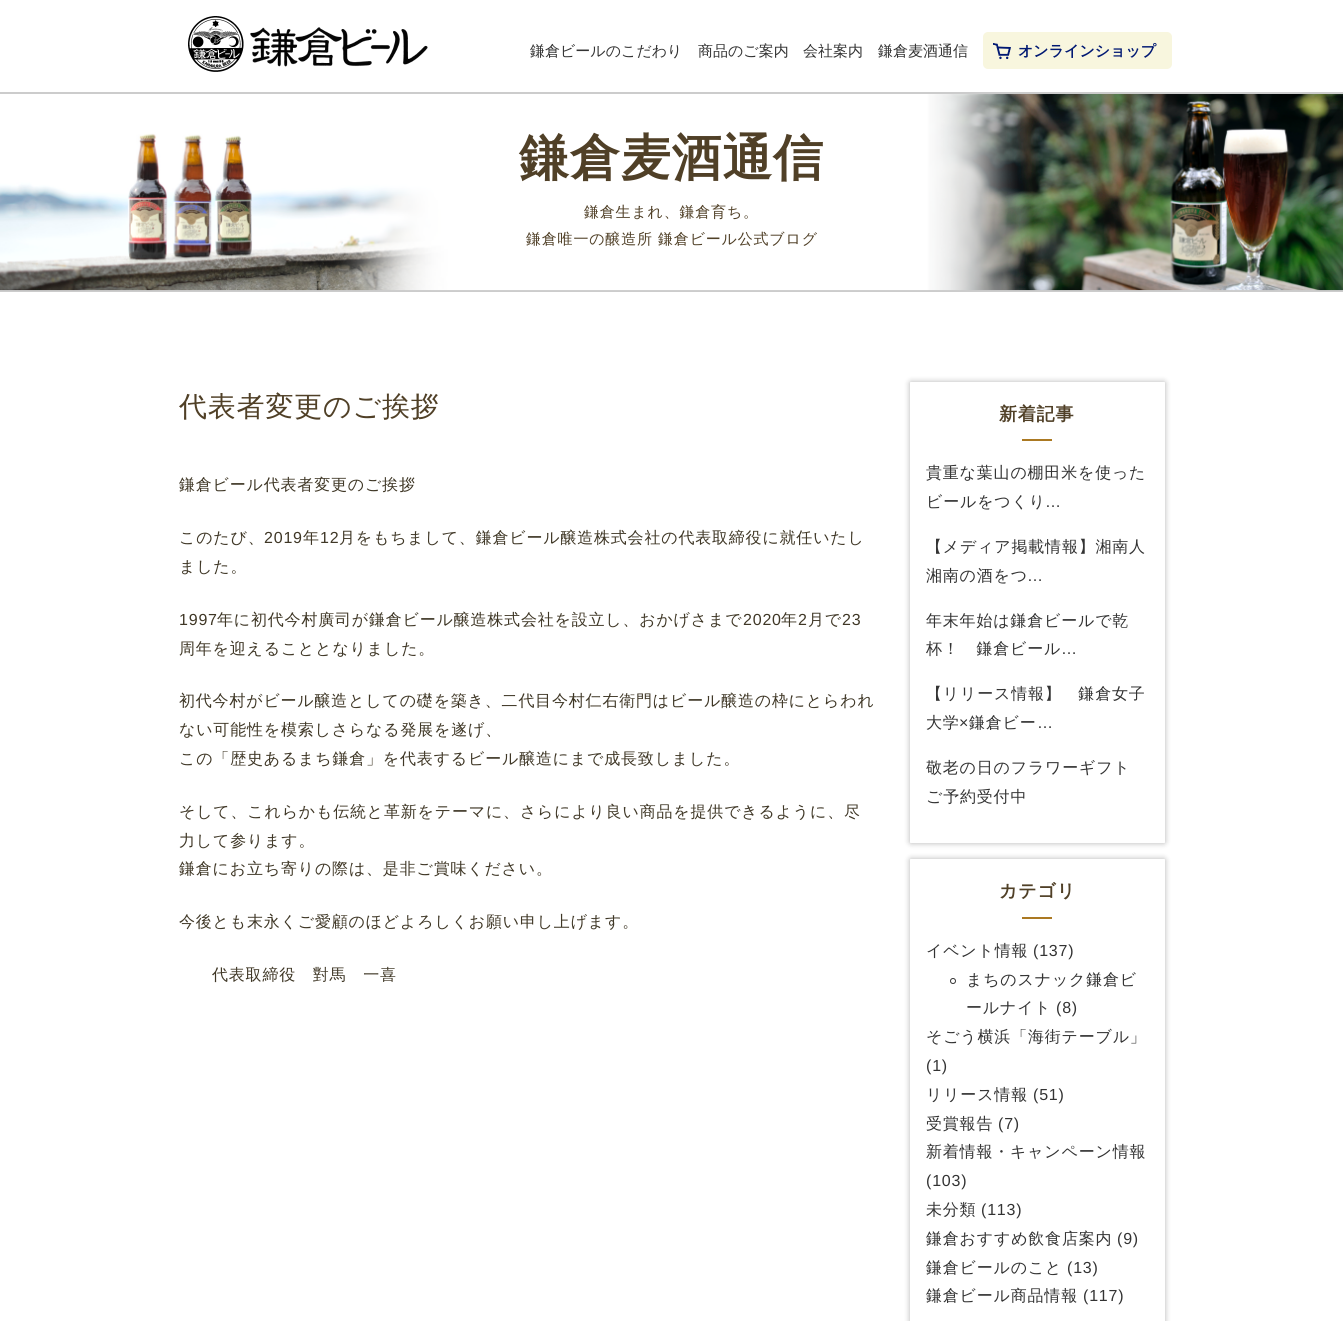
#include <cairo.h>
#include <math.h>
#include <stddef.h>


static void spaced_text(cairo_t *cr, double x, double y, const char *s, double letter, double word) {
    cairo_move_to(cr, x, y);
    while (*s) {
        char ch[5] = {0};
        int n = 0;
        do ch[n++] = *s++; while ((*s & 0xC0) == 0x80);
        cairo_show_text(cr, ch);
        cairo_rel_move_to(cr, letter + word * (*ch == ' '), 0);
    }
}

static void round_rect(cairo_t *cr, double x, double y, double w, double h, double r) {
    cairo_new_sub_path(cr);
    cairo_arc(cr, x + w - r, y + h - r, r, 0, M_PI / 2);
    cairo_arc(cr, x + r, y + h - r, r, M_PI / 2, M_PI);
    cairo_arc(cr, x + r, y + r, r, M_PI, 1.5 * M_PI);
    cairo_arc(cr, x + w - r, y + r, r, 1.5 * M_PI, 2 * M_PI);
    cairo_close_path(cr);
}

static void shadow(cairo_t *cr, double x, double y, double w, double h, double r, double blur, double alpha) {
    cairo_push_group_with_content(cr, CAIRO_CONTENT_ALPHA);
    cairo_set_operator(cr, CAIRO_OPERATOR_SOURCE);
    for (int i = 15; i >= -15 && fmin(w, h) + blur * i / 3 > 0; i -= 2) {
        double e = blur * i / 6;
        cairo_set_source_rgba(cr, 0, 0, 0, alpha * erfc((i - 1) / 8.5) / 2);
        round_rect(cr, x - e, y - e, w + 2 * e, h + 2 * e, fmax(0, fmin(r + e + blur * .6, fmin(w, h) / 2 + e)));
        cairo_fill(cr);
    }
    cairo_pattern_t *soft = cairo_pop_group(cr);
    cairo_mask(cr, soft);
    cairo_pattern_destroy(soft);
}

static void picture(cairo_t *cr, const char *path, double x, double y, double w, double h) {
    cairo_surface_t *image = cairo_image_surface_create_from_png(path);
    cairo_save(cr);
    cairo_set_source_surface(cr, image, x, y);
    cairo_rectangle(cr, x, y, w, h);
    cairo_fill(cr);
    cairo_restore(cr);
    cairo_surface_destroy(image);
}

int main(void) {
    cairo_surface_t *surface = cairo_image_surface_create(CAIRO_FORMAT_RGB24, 1343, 1321);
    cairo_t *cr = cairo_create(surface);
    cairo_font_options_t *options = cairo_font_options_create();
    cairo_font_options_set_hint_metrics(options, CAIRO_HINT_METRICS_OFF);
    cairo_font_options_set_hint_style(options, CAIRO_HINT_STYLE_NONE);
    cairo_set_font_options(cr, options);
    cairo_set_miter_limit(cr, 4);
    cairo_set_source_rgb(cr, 1, 1, 1);
    cairo_paint(cr);
    picture(cr, "img1.png", 188, 16, 240, 56);
    cairo_select_font_face(cr, "WenQuanYi Zen Hei Medium", CAIRO_FONT_SLANT_NORMAL, CAIRO_FONT_WEIGHT_NORMAL);
    cairo_set_font_size(cr, 15);
    cairo_set_source_rgb(cr, 0.2, 0.2, 0.2);
    cairo_move_to(cr, 530, 56);
    cairo_show_text(cr, "鎌倉ビールのこだわり");
    cairo_move_to(cr, 698, 56);
    cairo_show_text(cr, "商品のご案内");
    cairo_move_to(cr, 803, 56);
    cairo_show_text(cr, "会社案内");
    cairo_move_to(cr, 878, 56);
    cairo_show_text(cr, "鎌倉麦酒通信");
    cairo_set_source_rgb(cr, 0.969, 0.961, 0.871);
    round_rect(cr, 983, 32, 189, 37, 5);
    cairo_fill(cr);
    picture(cr, "img2.png", 993, 43, 18, 17);
    cairo_select_font_face(cr, "WenQuanYi Zen Hei", CAIRO_FONT_SLANT_NORMAL, CAIRO_FONT_WEIGHT_BOLD);
    cairo_set_source_rgb(cr, 0.004, 0.098, 0.451);
    cairo_move_to(cr, 1018, 56);
    cairo_show_text(cr, "オンラインショップ");
    picture(cr, "img3.png", 0, 93, 1343, 198);
    cairo_set_source_rgb(cr, 0.8, 0.8, 0.8);
    cairo_rectangle(cr, 0, 92, 1343, 1);
    cairo_fill(cr);
    cairo_rectangle(cr, 0, 291, 1343, 1);
    cairo_fill(cr);
    cairo_set_font_size(cr, 50);
    cairo_set_source_rgb(cr, 0.314, 0.251, 0.153);
    spaced_text(cr, 519, 175, "鎌倉麦酒通信", 0.8, 0);
    cairo_select_font_face(cr, "WenQuanYi Zen Hei Medium", CAIRO_FONT_SLANT_NORMAL, CAIRO_FONT_WEIGHT_NORMAL);
    cairo_set_font_size(cr, 15);
    spaced_text(cr, 584, 217, "鎌倉生まれ、鎌倉育ち。", 0.8, 0);
    spaced_text(cr, 526, 244, "鎌倉唯一の醸造所 鎌倉ビール公式ブログ", 0.8, 0);
    cairo_set_font_size(cr, 28);
    spaced_text(cr, 179, 416, "代表者変更のご挨拶", 0.8, 0);
    cairo_set_font_size(cr, 16);
    cairo_set_source_rgb(cr, 0.247, 0.216, 0.149);
    spaced_text(cr, 179, 490, "鎌倉ビール代表者変更のご挨拶", 0.8, 0);
    spaced_text(cr, 179, 543, "このたび、", 0.8, 0);
    cairo_select_font_face(cr, "Liberation Sans", CAIRO_FONT_SLANT_NORMAL, CAIRO_FONT_WEIGHT_NORMAL);
    spaced_text(cr, 264, 543, "2019", 0.8, 0);
    cairo_select_font_face(cr, "WenQuanYi Zen Hei Medium", CAIRO_FONT_SLANT_NORMAL, CAIRO_FONT_WEIGHT_NORMAL);
    spaced_text(cr, 303, 543, "年", 0.8, 0);
    cairo_select_font_face(cr, "Liberation Sans", CAIRO_FONT_SLANT_NORMAL, CAIRO_FONT_WEIGHT_NORMAL);
    spaced_text(cr, 320, 543, "12", 0.8, 0);
    cairo_select_font_face(cr, "WenQuanYi Zen Hei Medium", CAIRO_FONT_SLANT_NORMAL, CAIRO_FONT_WEIGHT_NORMAL);
    spaced_text(cr, 339, 543, "月をもちまして、鎌倉ビール醸造株式会社の代表取締役に就任いたし", 0.8, 0);
    spaced_text(cr, 179, 572, "ました。", 0.8, 0);
    cairo_select_font_face(cr, "Liberation Sans", CAIRO_FONT_SLANT_NORMAL, CAIRO_FONT_WEIGHT_NORMAL);
    spaced_text(cr, 179, 625, "1997", 0.8, 0);
    cairo_select_font_face(cr, "WenQuanYi Zen Hei Medium", CAIRO_FONT_SLANT_NORMAL, CAIRO_FONT_WEIGHT_NORMAL);
    spaced_text(cr, 217, 625, "年に初代今村廣司が鎌倉ビール醸造株式会社を設立し、おかげさまで", 0.8, 0);
    cairo_select_font_face(cr, "Liberation Sans", CAIRO_FONT_SLANT_NORMAL, CAIRO_FONT_WEIGHT_NORMAL);
    spaced_text(cr, 743, 625, "2020", 0.8, 0);
    cairo_select_font_face(cr, "WenQuanYi Zen Hei Medium", CAIRO_FONT_SLANT_NORMAL, CAIRO_FONT_WEIGHT_NORMAL);
    spaced_text(cr, 781, 625, "年", 0.8, 0);
    cairo_select_font_face(cr, "Liberation Sans", CAIRO_FONT_SLANT_NORMAL, CAIRO_FONT_WEIGHT_NORMAL);
    spaced_text(cr, 798, 625, "2", 0.8, 0);
    cairo_select_font_face(cr, "WenQuanYi Zen Hei Medium", CAIRO_FONT_SLANT_NORMAL, CAIRO_FONT_WEIGHT_NORMAL);
    spaced_text(cr, 808, 625, "月で", 0.8, 0);
    cairo_select_font_face(cr, "Liberation Sans", CAIRO_FONT_SLANT_NORMAL, CAIRO_FONT_WEIGHT_NORMAL);
    spaced_text(cr, 842, 625, "23", 0.8, 0);
    cairo_select_font_face(cr, "WenQuanYi Zen Hei Medium", CAIRO_FONT_SLANT_NORMAL, CAIRO_FONT_WEIGHT_NORMAL);
    spaced_text(cr, 179, 654, "周年を迎えることとなりました。", 0.8, 0);
    spaced_text(cr, 179, 706, "初代今村がビール醸造としての礎を築き、二代目今村仁右衛門はビール醸造の枠にとらわれ", 0.8, 0);
    spaced_text(cr, 179, 735, "ない可能性を模索しさらなる発展を遂げ、", 0.8, 0);
    spaced_text(cr, 179, 764, "この「歴史あるまち鎌倉」を代表するビール醸造にまで成長致しました。", 0.8, 0);
    spaced_text(cr, 179, 817, "そして、これらかも伝統と革新をテーマに、さらにより良い商品を提供できるように、尽", 0.8, 0);
    spaced_text(cr, 179, 846, "力して参ります。", 0.8, 0);
    spaced_text(cr, 179, 874, "鎌倉にお立ち寄りの際は、是非ご賞味ください。", 0.8, 0);
    spaced_text(cr, 179, 927, "今後とも末永くご愛顧のほどよろしくお願い申し上げます。", 0.8, 0);
    spaced_text(cr, 212, 980, "代表取締役　對馬　一喜", 0.8, 0);
    cairo_save(cr);
    cairo_set_fill_rule(cr, CAIRO_FILL_RULE_EVEN_ODD);
    cairo_new_path(cr);
    cairo_move_to(cr, 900, 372);
    cairo_line_to(cr, 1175, 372);
    cairo_line_to(cr, 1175, 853);
    cairo_line_to(cr, 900, 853);
    cairo_close_path(cr);
    cairo_move_to(cr, 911, 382);
    cairo_line_to(cr, 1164, 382);
    cairo_curve_to(cr, 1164.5, 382, 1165, 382.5, 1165, 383);
    cairo_line_to(cr, 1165, 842);
    cairo_curve_to(cr, 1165, 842.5, 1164.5, 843, 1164, 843);
    cairo_line_to(cr, 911, 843);
    cairo_curve_to(cr, 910.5, 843, 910, 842.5, 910, 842);
    cairo_line_to(cr, 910, 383);
    cairo_curve_to(cr, 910, 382.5, 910.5, 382, 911, 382);
    cairo_close_path(cr);
    cairo_clip(cr);
    cairo_set_source_rgb(cr, 0, 0, 0);
    shadow(cr, 910, 382, 255, 461, 1, 3, 0.3);
    cairo_restore(cr);
    cairo_select_font_face(cr, "WenQuanYi Zen Hei", CAIRO_FONT_SLANT_NORMAL, CAIRO_FONT_WEIGHT_BOLD);
    cairo_set_font_size(cr, 18);
    cairo_set_source_rgb(cr, 0.314, 0.251, 0.153);
    spaced_text(cr, 999, 420, "新着記事", 0.8, 0);
    cairo_set_source_rgb(cr, 0.671, 0.475, 0.133);
    cairo_rectangle(cr, 1022, 439, 30, 2);
    cairo_fill(cr);
    cairo_select_font_face(cr, "WenQuanYi Zen Hei Medium", CAIRO_FONT_SLANT_NORMAL, CAIRO_FONT_WEIGHT_NORMAL);
    cairo_set_font_size(cr, 16);
    cairo_set_source_rgb(cr, 0.2, 0.2, 0.2);
    spaced_text(cr, 926, 478, "貴重な葉山の棚田米を使った", 0.8, 0);
    spaced_text(cr, 926, 507, "ビールをつくり", 0.8, 0);
    cairo_select_font_face(cr, "Liberation Sans", CAIRO_FONT_SLANT_NORMAL, CAIRO_FONT_WEIGHT_NORMAL);
    spaced_text(cr, 1045, 507, "…", 0.8, 0);
    cairo_select_font_face(cr, "WenQuanYi Zen Hei Medium", CAIRO_FONT_SLANT_NORMAL, CAIRO_FONT_WEIGHT_NORMAL);
    spaced_text(cr, 926, 552, "【メディア掲載情報】湘南人", 0.8, 0);
    spaced_text(cr, 926, 581, "湘南の酒をつ", 0.8, 0);
    cairo_select_font_face(cr, "Liberation Sans", CAIRO_FONT_SLANT_NORMAL, CAIRO_FONT_WEIGHT_NORMAL);
    spaced_text(cr, 1027, 581, "…", 0.8, 0);
    cairo_select_font_face(cr, "WenQuanYi Zen Hei Medium", CAIRO_FONT_SLANT_NORMAL, CAIRO_FONT_WEIGHT_NORMAL);
    spaced_text(cr, 926, 626, "年末年始は鎌倉ビールで乾", 0.8, 0);
    spaced_text(cr, 926, 654, "杯！　鎌倉ビール", 0.8, 0);
    cairo_select_font_face(cr, "Liberation Sans", CAIRO_FONT_SLANT_NORMAL, CAIRO_FONT_WEIGHT_NORMAL);
    spaced_text(cr, 1061, 654, "…", 0.8, 0);
    cairo_select_font_face(cr, "WenQuanYi Zen Hei Medium", CAIRO_FONT_SLANT_NORMAL, CAIRO_FONT_WEIGHT_NORMAL);
    spaced_text(cr, 926, 699, "【リリース情報】　鎌倉女子", 0.8, 0);
    spaced_text(cr, 926, 728, "大学", 0.8, 0);
    cairo_select_font_face(cr, "Liberation Sans", CAIRO_FONT_SLANT_NORMAL, CAIRO_FONT_WEIGHT_NORMAL);
    spaced_text(cr, 959, 728, "×", 0.8, 0);
    cairo_select_font_face(cr, "WenQuanYi Zen Hei Medium", CAIRO_FONT_SLANT_NORMAL, CAIRO_FONT_WEIGHT_NORMAL);
    spaced_text(cr, 969, 728, "鎌倉ビー", 0.8, 0);
    cairo_select_font_face(cr, "Liberation Sans", CAIRO_FONT_SLANT_NORMAL, CAIRO_FONT_WEIGHT_NORMAL);
    spaced_text(cr, 1037, 728, "…", 0.8, 0);
    cairo_select_font_face(cr, "WenQuanYi Zen Hei Medium", CAIRO_FONT_SLANT_NORMAL, CAIRO_FONT_WEIGHT_NORMAL);
    spaced_text(cr, 926, 773, "敬老の日のフラワーギフト", 0.8, 0);
    spaced_text(cr, 926, 802, "ご予約受付中", 0.8, 0);
    cairo_save(cr);
    cairo_set_fill_rule(cr, CAIRO_FILL_RULE_EVEN_ODD);
    cairo_new_path(cr);
    cairo_move_to(cr, 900, 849);
    cairo_line_to(cr, 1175, 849);
    cairo_line_to(cr, 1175, 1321);
    cairo_line_to(cr, 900, 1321);
    cairo_close_path(cr);
    cairo_move_to(cr, 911, 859);
    cairo_line_to(cr, 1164, 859);
    cairo_curve_to(cr, 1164.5, 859, 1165, 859.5, 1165, 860);
    cairo_line_to(cr, 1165, 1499);
    cairo_curve_to(cr, 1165, 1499.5, 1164.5, 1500, 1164, 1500);
    cairo_line_to(cr, 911, 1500);
    cairo_curve_to(cr, 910.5, 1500, 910, 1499.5, 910, 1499);
    cairo_line_to(cr, 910, 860);
    cairo_curve_to(cr, 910, 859.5, 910.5, 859, 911, 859);
    cairo_close_path(cr);
    cairo_clip(cr);
    cairo_set_source_rgb(cr, 0, 0, 0);
    shadow(cr, 910, 859, 255, 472, 1, 3, 0.3);
    cairo_restore(cr);
    cairo_select_font_face(cr, "WenQuanYi Zen Hei", CAIRO_FONT_SLANT_NORMAL, CAIRO_FONT_WEIGHT_BOLD);
    cairo_set_font_size(cr, 18);
    cairo_set_source_rgb(cr, 0.314, 0.251, 0.153);
    spaced_text(cr, 999, 897, "カテゴリ", 0.8, 0);
    cairo_set_source_rgb(cr, 0.671, 0.475, 0.133);
    cairo_rectangle(cr, 1022, 917, 30, 2);
    cairo_fill(cr);
    cairo_select_font_face(cr, "WenQuanYi Zen Hei Medium", CAIRO_FONT_SLANT_NORMAL, CAIRO_FONT_WEIGHT_NORMAL);
    cairo_set_font_size(cr, 16);
    cairo_set_source_rgb(cr, 0.2, 0.2, 0.2);
    spaced_text(cr, 926, 956, "イベント情報", 0.8, 0);
    cairo_select_font_face(cr, "Liberation Sans", CAIRO_FONT_SLANT_NORMAL, CAIRO_FONT_WEIGHT_NORMAL);
    spaced_text(cr, 1033, 956, "(137)", 0.8, 0);
    cairo_new_path(cr);
    cairo_arc(cr, 953, 981, 2.5, 0, 2 * M_PI);
    cairo_set_line_width(cr, 1);
    cairo_stroke(cr);
    cairo_select_font_face(cr, "WenQuanYi Zen Hei Medium", CAIRO_FONT_SLANT_NORMAL, CAIRO_FONT_WEIGHT_NORMAL);
    spaced_text(cr, 966, 985, "まちのスナック鎌倉ビ", 0.8, 0);
    spaced_text(cr, 966, 1013, "ールナイト", 0.8, 0);
    cairo_select_font_face(cr, "Liberation Sans", CAIRO_FONT_SLANT_NORMAL, CAIRO_FONT_WEIGHT_NORMAL);
    spaced_text(cr, 1056, 1013, "(8)", 0.8, 0);
    cairo_select_font_face(cr, "WenQuanYi Zen Hei Medium", CAIRO_FONT_SLANT_NORMAL, CAIRO_FONT_WEIGHT_NORMAL);
    spaced_text(cr, 926, 1042, "そごう横浜「海街テーブル」", 0.8, 0);
    cairo_select_font_face(cr, "Liberation Sans", CAIRO_FONT_SLANT_NORMAL, CAIRO_FONT_WEIGHT_NORMAL);
    spaced_text(cr, 926, 1071, "(1)", 0.8, 0);
    cairo_select_font_face(cr, "WenQuanYi Zen Hei Medium", CAIRO_FONT_SLANT_NORMAL, CAIRO_FONT_WEIGHT_NORMAL);
    spaced_text(cr, 926, 1100, "リリース情報", 0.8, 0);
    cairo_select_font_face(cr, "Liberation Sans", CAIRO_FONT_SLANT_NORMAL, CAIRO_FONT_WEIGHT_NORMAL);
    spaced_text(cr, 1033, 1100, "(51)", 0.8, 0);
    cairo_select_font_face(cr, "WenQuanYi Zen Hei Medium", CAIRO_FONT_SLANT_NORMAL, CAIRO_FONT_WEIGHT_NORMAL);
    spaced_text(cr, 926, 1129, "受賞報告", 0.8, 0);
    cairo_select_font_face(cr, "Liberation Sans", CAIRO_FONT_SLANT_NORMAL, CAIRO_FONT_WEIGHT_NORMAL);
    spaced_text(cr, 998, 1129, "(7)", 0.8, 0);
    cairo_select_font_face(cr, "WenQuanYi Zen Hei Medium", CAIRO_FONT_SLANT_NORMAL, CAIRO_FONT_WEIGHT_NORMAL);
    spaced_text(cr, 926, 1157, "新着情報・キャンペーン情報", 0.8, 0);
    cairo_select_font_face(cr, "Liberation Sans", CAIRO_FONT_SLANT_NORMAL, CAIRO_FONT_WEIGHT_NORMAL);
    spaced_text(cr, 926, 1186, "(103)", 0.8, 0);
    cairo_select_font_face(cr, "WenQuanYi Zen Hei Medium", CAIRO_FONT_SLANT_NORMAL, CAIRO_FONT_WEIGHT_NORMAL);
    spaced_text(cr, 926, 1215, "未分類", 0.8, 0);
    cairo_select_font_face(cr, "Liberation Sans", CAIRO_FONT_SLANT_NORMAL, CAIRO_FONT_WEIGHT_NORMAL);
    spaced_text(cr, 981, 1215, "(113)", 0.8, 0);
    cairo_select_font_face(cr, "WenQuanYi Zen Hei Medium", CAIRO_FONT_SLANT_NORMAL, CAIRO_FONT_WEIGHT_NORMAL);
    spaced_text(cr, 926, 1244, "鎌倉おすすめ飲食店案内", 0.8, 0);
    cairo_select_font_face(cr, "Liberation Sans", CAIRO_FONT_SLANT_NORMAL, CAIRO_FONT_WEIGHT_NORMAL);
    spaced_text(cr, 1117, 1244, "(9)", 0.8, 0);
    cairo_select_font_face(cr, "WenQuanYi Zen Hei Medium", CAIRO_FONT_SLANT_NORMAL, CAIRO_FONT_WEIGHT_NORMAL);
    spaced_text(cr, 926, 1273, "鎌倉ビールのこと", 0.8, 0);
    cairo_select_font_face(cr, "Liberation Sans", CAIRO_FONT_SLANT_NORMAL, CAIRO_FONT_WEIGHT_NORMAL);
    spaced_text(cr, 1067, 1273, "(13)", 0.8, 0);
    cairo_select_font_face(cr, "WenQuanYi Zen Hei Medium", CAIRO_FONT_SLANT_NORMAL, CAIRO_FONT_WEIGHT_NORMAL);
    spaced_text(cr, 926, 1301, "鎌倉ビール商品情報", 0.8, 0);
    cairo_select_font_face(cr, "Liberation Sans", CAIRO_FONT_SLANT_NORMAL, CAIRO_FONT_WEIGHT_NORMAL);
    spaced_text(cr, 1083, 1301, "(117)", 0.8, 0);
    cairo_surface_write_to_png(surface, "page.png");
    cairo_font_options_destroy(options);
    cairo_destroy(cr);
    cairo_surface_destroy(surface);
    return 0;
}
